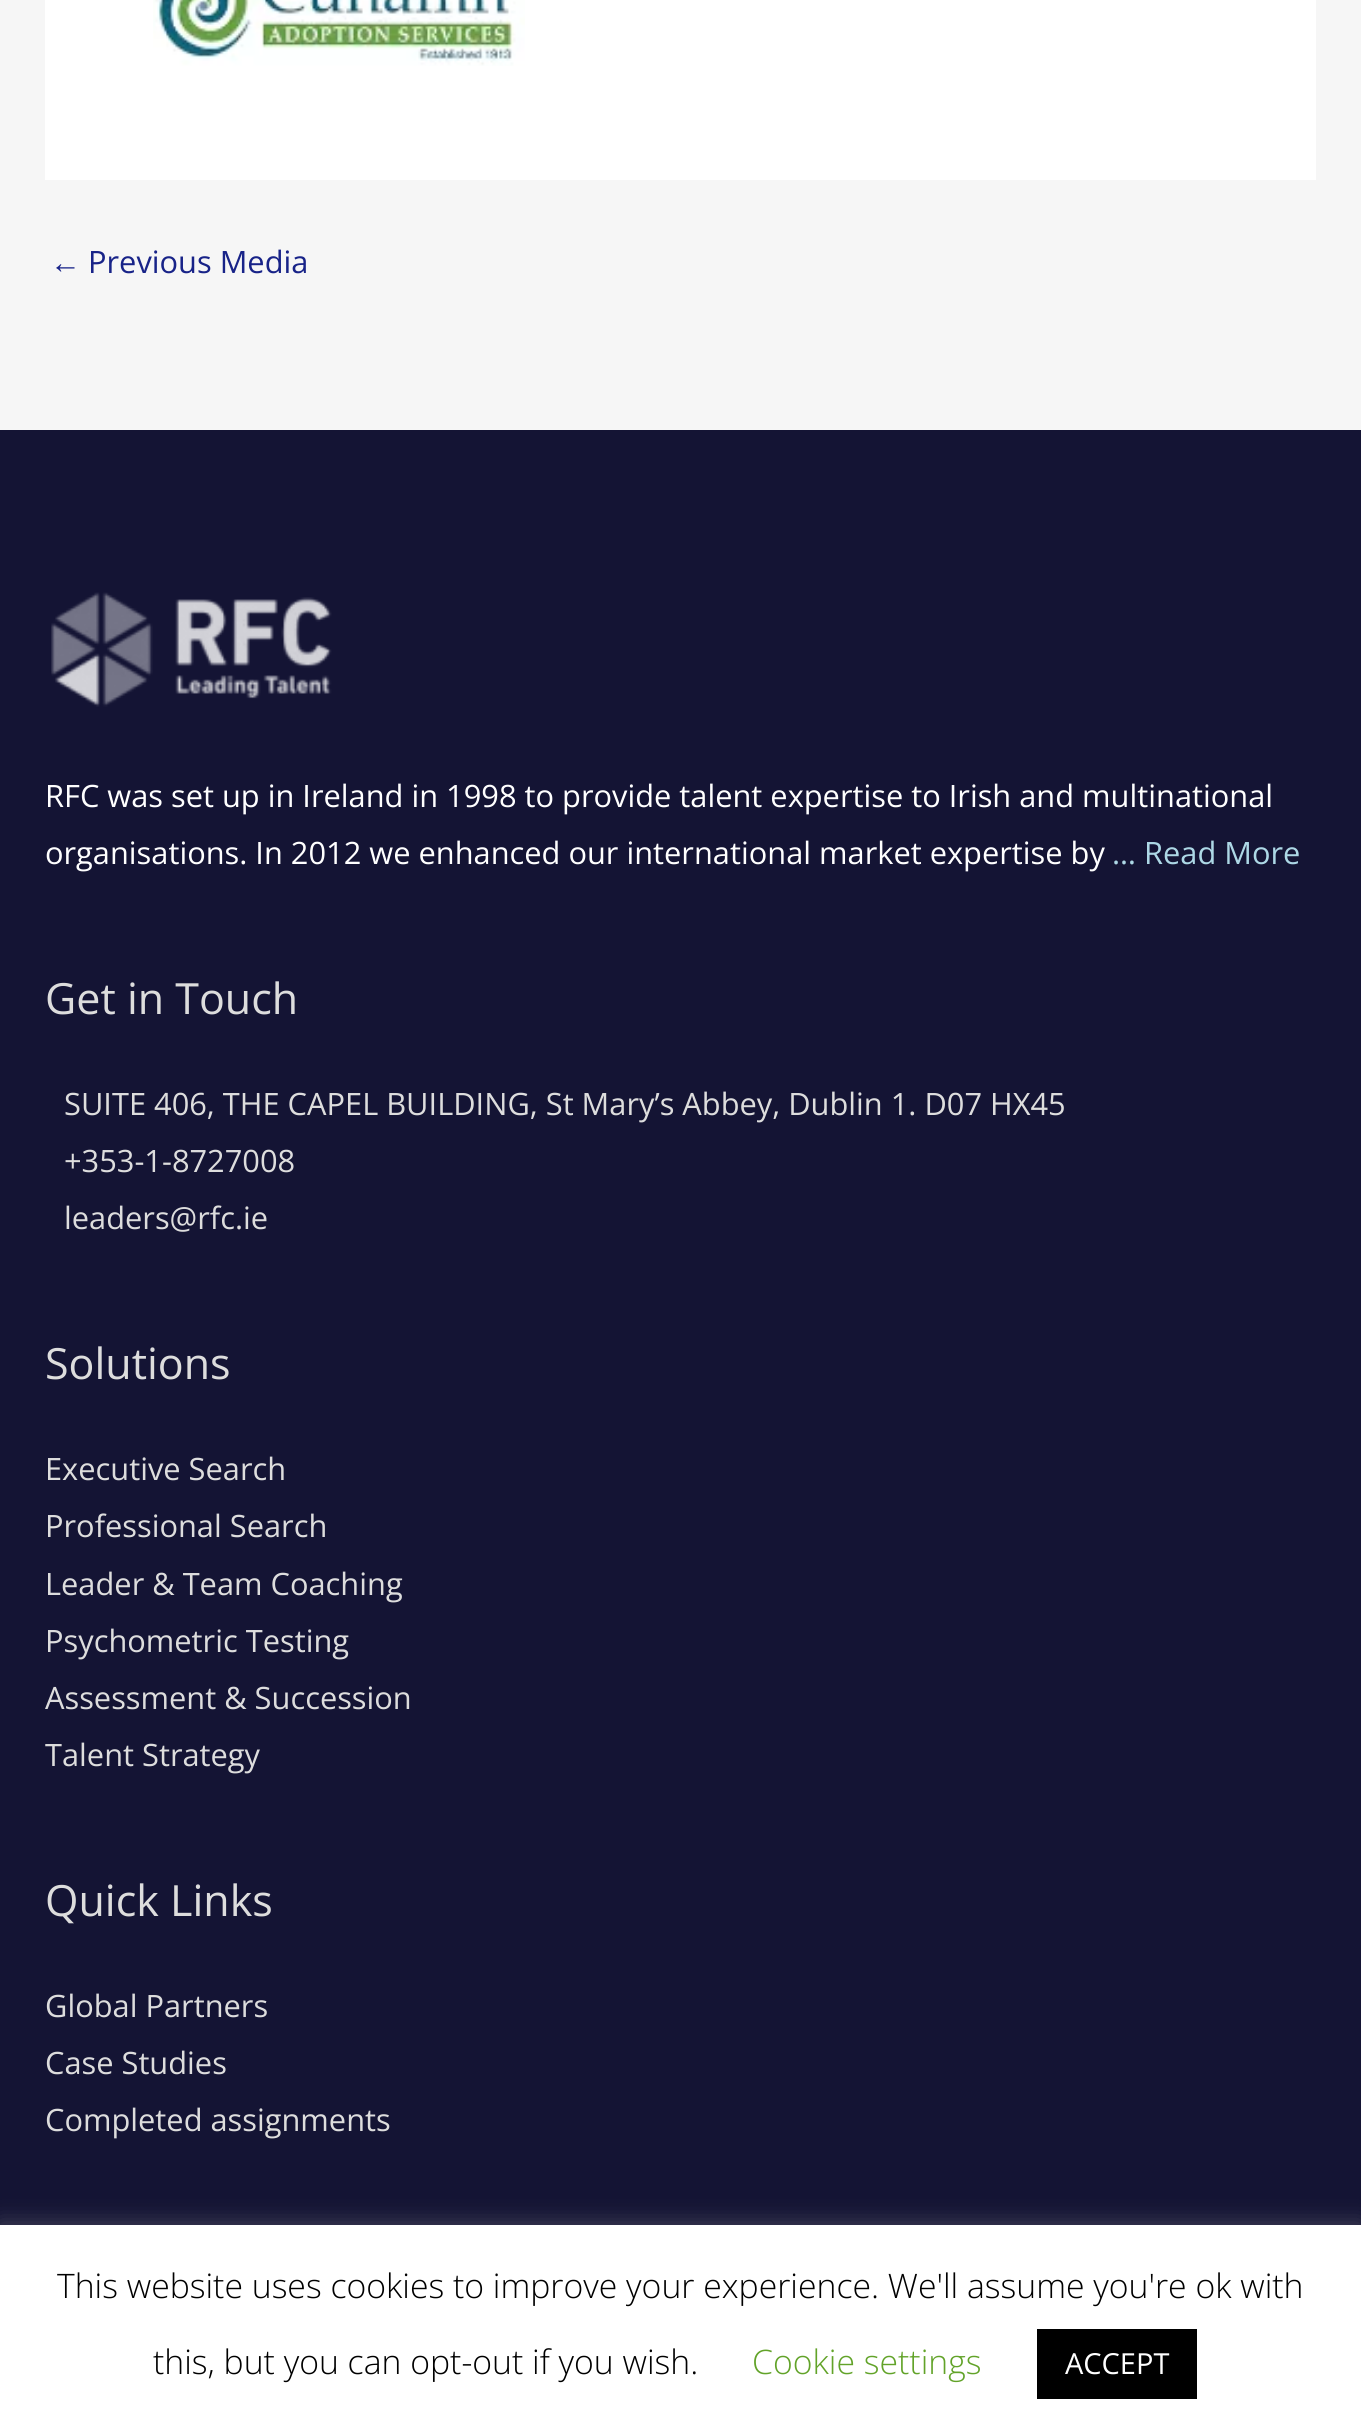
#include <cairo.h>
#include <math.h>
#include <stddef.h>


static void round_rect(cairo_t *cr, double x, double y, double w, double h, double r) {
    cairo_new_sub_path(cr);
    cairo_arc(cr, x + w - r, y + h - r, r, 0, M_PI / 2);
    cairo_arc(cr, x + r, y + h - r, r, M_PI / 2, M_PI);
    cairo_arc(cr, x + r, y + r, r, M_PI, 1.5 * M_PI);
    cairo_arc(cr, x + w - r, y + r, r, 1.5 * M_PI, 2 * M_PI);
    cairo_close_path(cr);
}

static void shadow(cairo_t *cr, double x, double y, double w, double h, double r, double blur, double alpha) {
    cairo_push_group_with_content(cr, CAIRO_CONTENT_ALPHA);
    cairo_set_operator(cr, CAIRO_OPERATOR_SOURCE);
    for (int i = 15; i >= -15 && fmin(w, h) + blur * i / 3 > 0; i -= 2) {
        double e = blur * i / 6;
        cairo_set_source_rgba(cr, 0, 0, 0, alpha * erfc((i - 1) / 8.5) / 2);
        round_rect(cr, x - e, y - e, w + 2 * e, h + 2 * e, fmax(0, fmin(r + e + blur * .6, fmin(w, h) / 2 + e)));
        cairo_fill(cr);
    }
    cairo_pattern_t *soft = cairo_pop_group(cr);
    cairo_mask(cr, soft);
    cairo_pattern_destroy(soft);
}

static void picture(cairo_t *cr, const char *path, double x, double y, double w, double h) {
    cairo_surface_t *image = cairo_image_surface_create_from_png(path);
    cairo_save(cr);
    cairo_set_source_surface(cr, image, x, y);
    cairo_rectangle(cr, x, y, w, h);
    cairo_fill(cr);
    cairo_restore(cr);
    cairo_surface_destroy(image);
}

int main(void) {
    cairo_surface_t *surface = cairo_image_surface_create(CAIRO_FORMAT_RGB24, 1361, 2435);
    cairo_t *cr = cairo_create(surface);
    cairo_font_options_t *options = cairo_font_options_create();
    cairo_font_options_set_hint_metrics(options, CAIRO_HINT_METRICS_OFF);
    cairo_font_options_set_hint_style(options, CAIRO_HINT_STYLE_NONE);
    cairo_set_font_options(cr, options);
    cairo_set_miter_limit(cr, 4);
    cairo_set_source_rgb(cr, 0.961, 0.961, 0.961);
    cairo_paint(cr);
    cairo_set_source_rgb(cr, 1, 1, 1);
    cairo_rectangle(cr, 45, 0, 1271, 180);
    cairo_fill(cr);
    picture(cr, "img1.png", 153, 0, 372, 66);
    cairo_select_font_face(cr, "Liberation Serif", CAIRO_FONT_SLANT_NORMAL, CAIRO_FONT_WEIGHT_NORMAL);
    cairo_set_font_size(cr, 30.8);
    cairo_set_source_rgb(cr, 0.094, 0.137, 0.533);
    cairo_move_to(cr, 50, 273);
    cairo_show_text(cr, "←");
    cairo_select_font_face(cr, "Open Sans", CAIRO_FONT_SLANT_NORMAL, CAIRO_FONT_WEIGHT_NORMAL);
    cairo_move_to(cr, 88, 273);
    cairo_show_text(cr, "Previous Media");
    cairo_set_source_rgb(cr, 0.082, 0.082, 0.204);
    cairo_rectangle(cr, 0, 430, 1361, 1795);
    cairo_fill(cr);
    picture(cr, "img2.png", 51, 592, 281, 115);
    cairo_set_source_rgb(cr, 1, 1, 1);
    cairo_move_to(cr, 45, 807);
    cairo_show_text(cr, "RFC was set up in Ireland in 1998 to provide talent expertise to Irish and multinational");
    cairo_move_to(cr, 45, 864);
    cairo_show_text(cr, "organisations. In 2012 we enhanced our international market expertise by");
    cairo_set_source_rgb(cr, 0.678, 0.847, 0.902);
    cairo_move_to(cr, 1112, 864);
    cairo_show_text(cr, "… Read More");
    cairo_set_font_size(cr, 43);
    cairo_set_source_rgb(cr, 0.867, 0.867, 0.867);
    cairo_move_to(cr, 45, 1014);
    cairo_show_text(cr, "Get in Touch");
    cairo_set_font_size(cr, 30.8);
    cairo_move_to(cr, 64, 1115);
    cairo_show_text(cr, "SUITE 406, THE CAPEL BUILDING, St Mary’s Abbey, Dublin 1. D07 HX45");
    cairo_move_to(cr, 64, 1172);
    cairo_show_text(cr, "+353-1-8727008");
    cairo_move_to(cr, 64, 1229);
    cairo_show_text(cr, "leaders@rfc.ie");
    cairo_set_font_size(cr, 43);
    cairo_move_to(cr, 45, 1379);
    cairo_show_text(cr, "Solutions");
    cairo_set_font_size(cr, 30.8);
    cairo_move_to(cr, 45, 1480);
    cairo_show_text(cr, "Executive Search");
    cairo_move_to(cr, 45, 1537);
    cairo_show_text(cr, "Professional Search");
    cairo_move_to(cr, 45, 1595);
    cairo_show_text(cr, "Leader & Team Coaching");
    cairo_move_to(cr, 45, 1652);
    cairo_show_text(cr, "Psychometric Testing");
    cairo_move_to(cr, 45, 1709);
    cairo_show_text(cr, "Assessment & Succession");
    cairo_move_to(cr, 45, 1766);
    cairo_show_text(cr, "Talent Strategy");
    cairo_set_font_size(cr, 43);
    cairo_move_to(cr, 45, 1916);
    cairo_show_text(cr, "Quick Links");
    cairo_set_font_size(cr, 30.8);
    cairo_move_to(cr, 45, 2017);
    cairo_show_text(cr, "Global Partners");
    cairo_move_to(cr, 45, 2074);
    cairo_show_text(cr, "Case Studies");
    cairo_move_to(cr, 45, 2131);
    cairo_show_text(cr, "Completed assignments");
    cairo_set_source_rgb(cr, 0.675, 0.671, 0.671);
    shadow(cr, 0, 2223, 1361, 212, 0, 11, 0.3);
    cairo_set_source_rgb(cr, 1, 1, 1);
    cairo_rectangle(cr, 0, 2225, 1361, 210);
    cairo_fill(cr);
    cairo_select_font_face(cr, "Open Sans Light", CAIRO_FONT_SLANT_NORMAL, CAIRO_FONT_WEIGHT_NORMAL);
    cairo_set_font_size(cr, 33.75);
    cairo_set_source_rgb(cr, 0, 0, 0);
    cairo_move_to(cr, 57, 2298);
    cairo_show_text(cr, "This website uses cookies to improve your experience. We'll assume you're ok with");
    cairo_move_to(cr, 153, 2374);
    cairo_show_text(cr, "this, but you can opt-out if you wish.");
    cairo_set_source_rgb(cr, 0.384, 0.639, 0.161);
    cairo_move_to(cr, 752, 2374);
    cairo_show_text(cr, "Cookie settings");
    cairo_set_source_rgb(cr, 0, 0, 0);
    cairo_rectangle(cr, 1037, 2329, 160, 70);
    cairo_fill(cr);
    cairo_select_font_face(cr, "Open Sans", CAIRO_FONT_SLANT_NORMAL, CAIRO_FONT_WEIGHT_NORMAL);
    cairo_set_font_size(cr, 29);
    cairo_set_source_rgb(cr, 1, 1, 1);
    cairo_move_to(cr, 1065, 2374);
    cairo_show_text(cr, "ACCEPT");
    cairo_surface_write_to_png(surface, "page.png");
    cairo_font_options_destroy(options);
    cairo_destroy(cr);
    cairo_surface_destroy(surface);
    return 0;
}
